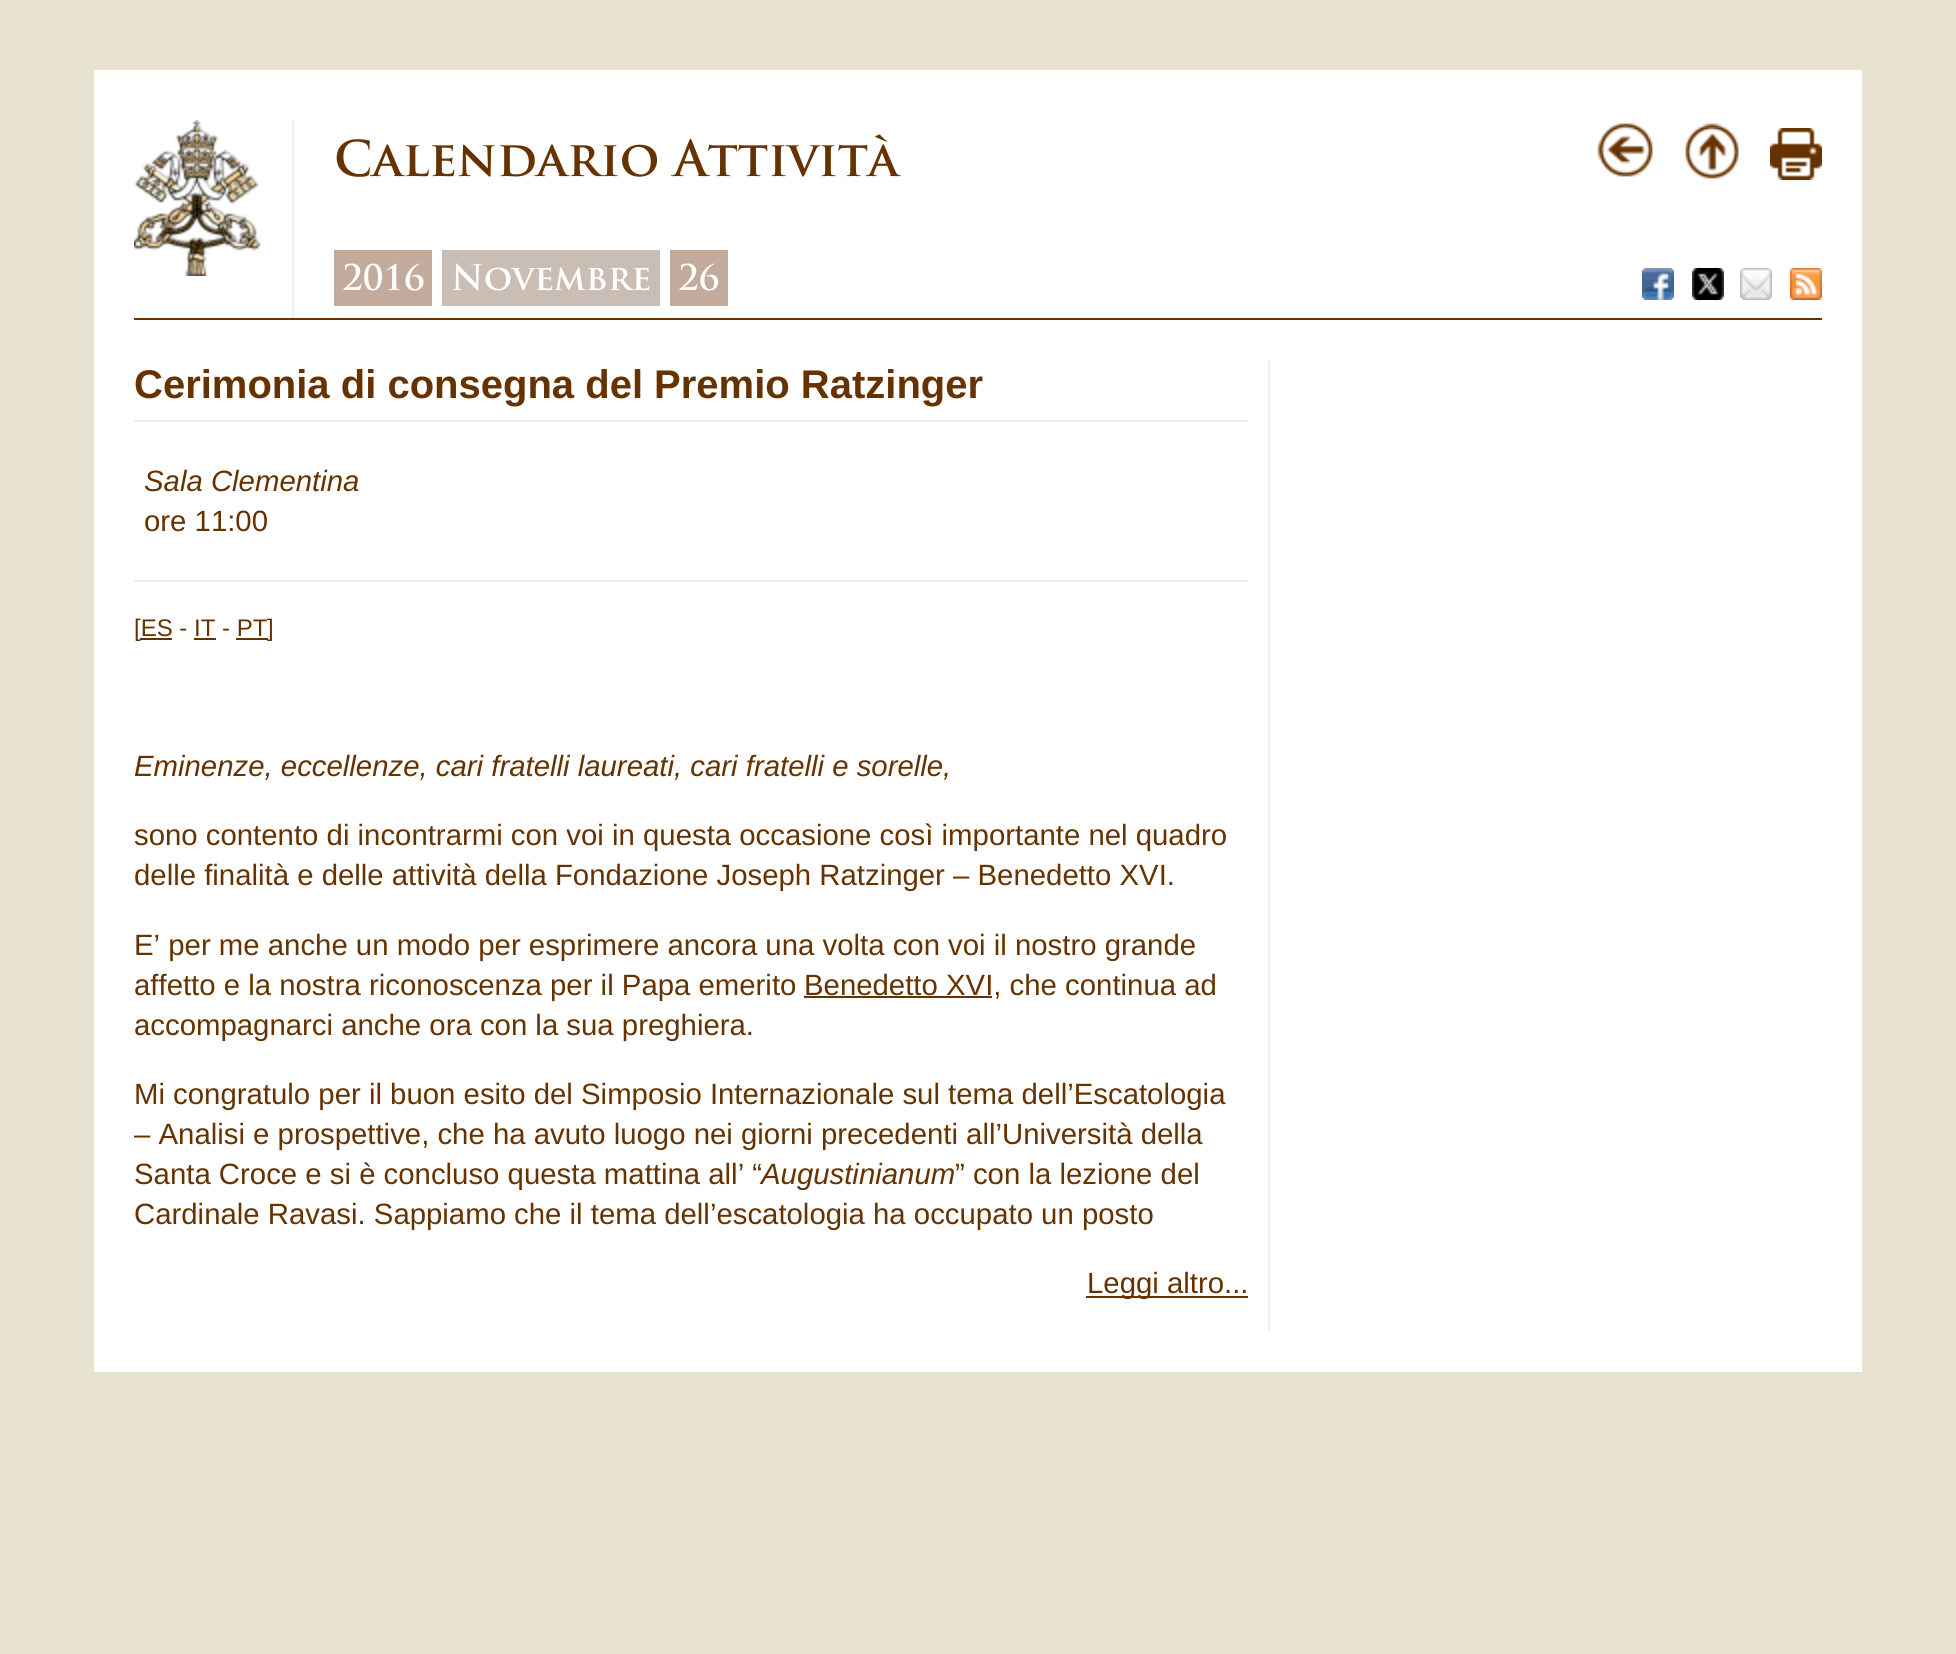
#include <cairo.h>
#include <math.h>
#include <stddef.h>


static void picture(cairo_t *cr, const char *path, double x, double y, double w, double h) {
    cairo_surface_t *image = cairo_image_surface_create_from_png(path);
    cairo_save(cr);
    cairo_set_source_surface(cr, image, x, y);
    cairo_rectangle(cr, x, y, w, h);
    cairo_fill(cr);
    cairo_restore(cr);
    cairo_surface_destroy(image);
}

int main(void) {
    cairo_surface_t *surface = cairo_image_surface_create(CAIRO_FORMAT_RGB24, 1956, 1654);
    cairo_t *cr = cairo_create(surface);
    cairo_font_options_t *options = cairo_font_options_create();
    cairo_font_options_set_hint_metrics(options, CAIRO_HINT_METRICS_OFF);
    cairo_font_options_set_hint_style(options, CAIRO_HINT_STYLE_NONE);
    cairo_set_font_options(cr, options);
    cairo_set_miter_limit(cr, 4);
    cairo_set_source_rgb(cr, 0.91, 0.886, 0.82);
    cairo_paint(cr);
    cairo_set_source_rgb(cr, 1, 1, 1);
    cairo_rectangle(cr, 94, 70, 1768, 1302);
    cairo_fill(cr);
    cairo_set_source_rgb(cr, 0.4, 0.2, 0);
    cairo_rectangle(cr, 134, 318, 1688, 2);
    cairo_fill(cr);
    cairo_set_source_rgb(cr, 0.933, 0.933, 0.933);
    cairo_rectangle(cr, 292, 120, 2, 198);
    cairo_fill(cr);
    picture(cr, "img1.png", 134, 120, 127, 156);
    cairo_select_font_face(cr, "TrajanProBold", CAIRO_FONT_SLANT_NORMAL, CAIRO_FONT_WEIGHT_BOLD);
    cairo_set_font_size(cr, 48);
    cairo_set_source_rgb(cr, 0.4, 0.2, 0);
    cairo_move_to(cr, 334, 176);
    cairo_show_text(cr, "Calendario Attività");
    cairo_set_source_rgb(cr, 0.761, 0.671, 0.608);
    cairo_rectangle(cr, 334, 250, 98, 56);
    cairo_fill(cr);
    cairo_set_font_size(cr, 34.5);
    cairo_set_source_rgb(cr, 1, 1, 1);
    cairo_move_to(cr, 342, 290);
    cairo_show_text(cr, "2016");
    cairo_set_source_rgb(cr, 0.792, 0.741, 0.706);
    cairo_rectangle(cr, 442, 250, 218, 56);
    cairo_fill(cr);
    cairo_set_source_rgb(cr, 1, 1, 1);
    cairo_move_to(cr, 451, 290);
    cairo_show_text(cr, "Novembre");
    cairo_set_source_rgb(cr, 0.761, 0.671, 0.608);
    cairo_rectangle(cr, 670, 250, 58, 56);
    cairo_fill(cr);
    cairo_set_source_rgb(cr, 1, 1, 1);
    cairo_move_to(cr, 678, 290);
    cairo_show_text(cr, "26");
    picture(cr, "img2.png", 1597, 123, 56, 54);
    picture(cr, "img3.png", 1685, 123, 54, 56);
    picture(cr, "img4.png", 1770, 128, 52, 52);
    picture(cr, "img5.png", 1642, 268, 32, 32);
    picture(cr, "img6.png", 1692, 268, 32, 32);
    picture(cr, "img7.png", 1740, 268, 32, 32);
    picture(cr, "img8.png", 1790, 268, 32, 32);
    cairo_set_source_rgb(cr, 0.933, 0.933, 0.933);
    cairo_rectangle(cr, 1268, 360, 2, 972);
    cairo_fill(cr);
    cairo_rectangle(cr, 134, 420, 1114, 2);
    cairo_fill(cr);
    cairo_select_font_face(cr, "Liberation Sans", CAIRO_FONT_SLANT_NORMAL, CAIRO_FONT_WEIGHT_BOLD);
    cairo_set_font_size(cr, 40);
    cairo_set_source_rgb(cr, 0.4, 0.2, 0);
    cairo_move_to(cr, 134, 398);
    cairo_show_text(cr, "Cerimonia di consegna del Premio Ratzinger");
    cairo_set_source_rgb(cr, 0.933, 0.933, 0.933);
    cairo_rectangle(cr, 134, 580, 1114, 2);
    cairo_fill(cr);
    cairo_select_font_face(cr, "Liberation Sans", CAIRO_FONT_SLANT_ITALIC, CAIRO_FONT_WEIGHT_NORMAL);
    cairo_set_font_size(cr, 29.35);
    cairo_set_source_rgb(cr, 0.4, 0.2, 0);
    cairo_move_to(cr, 144, 491);
    cairo_show_text(cr, "Sala Clementina");
    cairo_select_font_face(cr, "Liberation Sans", CAIRO_FONT_SLANT_NORMAL, CAIRO_FONT_WEIGHT_NORMAL);
    cairo_move_to(cr, 144, 531);
    cairo_show_text(cr, "ore 11:00");
    cairo_set_font_size(cr, 24);
    cairo_move_to(cr, 134, 636);
    cairo_show_text(cr, "[ES - IT - PT");
    cairo_rectangle(cr, 236, 638, 32, 2);
    cairo_fill(cr);
    cairo_move_to(cr, 267, 636);
    cairo_show_text(cr, "]");
    cairo_rectangle(cr, 140, 638, 32, 2);
    cairo_fill(cr);
    cairo_rectangle(cr, 194, 638, 22, 2);
    cairo_fill(cr);
    cairo_select_font_face(cr, "Liberation Sans", CAIRO_FONT_SLANT_ITALIC, CAIRO_FONT_WEIGHT_NORMAL);
    cairo_set_font_size(cr, 29.35);
    cairo_move_to(cr, 134, 776);
    cairo_show_text(cr, "Eminenze, eccellenze, cari fratelli laureati, cari fratelli e sorelle,");
    cairo_select_font_face(cr, "Liberation Sans", CAIRO_FONT_SLANT_NORMAL, CAIRO_FONT_WEIGHT_NORMAL);
    cairo_move_to(cr, 134, 845);
    cairo_show_text(cr, "sono contento di incontrarmi con voi in questa occasione così importante nel quadro");
    cairo_move_to(cr, 134, 885);
    cairo_show_text(cr, "delle finalità e delle attività della Fondazione Joseph Ratzinger – Benedetto XVI.");
    cairo_move_to(cr, 134, 955);
    cairo_show_text(cr, "E’ per me anche un modo per esprimere ancora una volta con voi il nostro grande");
    cairo_move_to(cr, 134, 995);
    cairo_show_text(cr, "affetto e la nostra riconoscenza per il Papa emerito");
    cairo_rectangle(cr, 804, 996, 188, 2);
    cairo_fill(cr);
    cairo_move_to(cr, 804, 995);
    cairo_show_text(cr, "Benedetto XVI, che continua ad");
    cairo_move_to(cr, 134, 1035);
    cairo_show_text(cr, "accompagnarci anche ora con la sua preghiera.");
    cairo_move_to(cr, 134, 1104);
    cairo_show_text(cr, "Mi congratulo per il buon esito del Simposio Internazionale sul tema dell’Escatologia");
    cairo_move_to(cr, 134, 1144);
    cairo_show_text(cr, "– Analisi e prospettive, che ha avuto luogo nei giorni precedenti all’Università della");
    cairo_move_to(cr, 134, 1184);
    cairo_show_text(cr, "Santa Croce e si è concluso questa mattina all’ “");
    cairo_select_font_face(cr, "Liberation Sans", CAIRO_FONT_SLANT_ITALIC, CAIRO_FONT_WEIGHT_NORMAL);
    cairo_move_to(cr, 761, 1184);
    cairo_show_text(cr, "Augustinianum");
    cairo_select_font_face(cr, "Liberation Sans", CAIRO_FONT_SLANT_NORMAL, CAIRO_FONT_WEIGHT_NORMAL);
    cairo_move_to(cr, 955, 1184);
    cairo_show_text(cr, "” con la lezione del");
    cairo_move_to(cr, 134, 1224);
    cairo_show_text(cr, "Cardinale Ravasi. Sappiamo che il tema dell’escatologia ha occupato un posto");
    cairo_rectangle(cr, 1086, 1296, 162, 2);
    cairo_fill(cr);
    cairo_move_to(cr, 1087, 1293);
    cairo_show_text(cr, "Leggi altro...");
    cairo_surface_write_to_png(surface, "page.png");
    cairo_font_options_destroy(options);
    cairo_destroy(cr);
    cairo_surface_destroy(surface);
    return 0;
}
